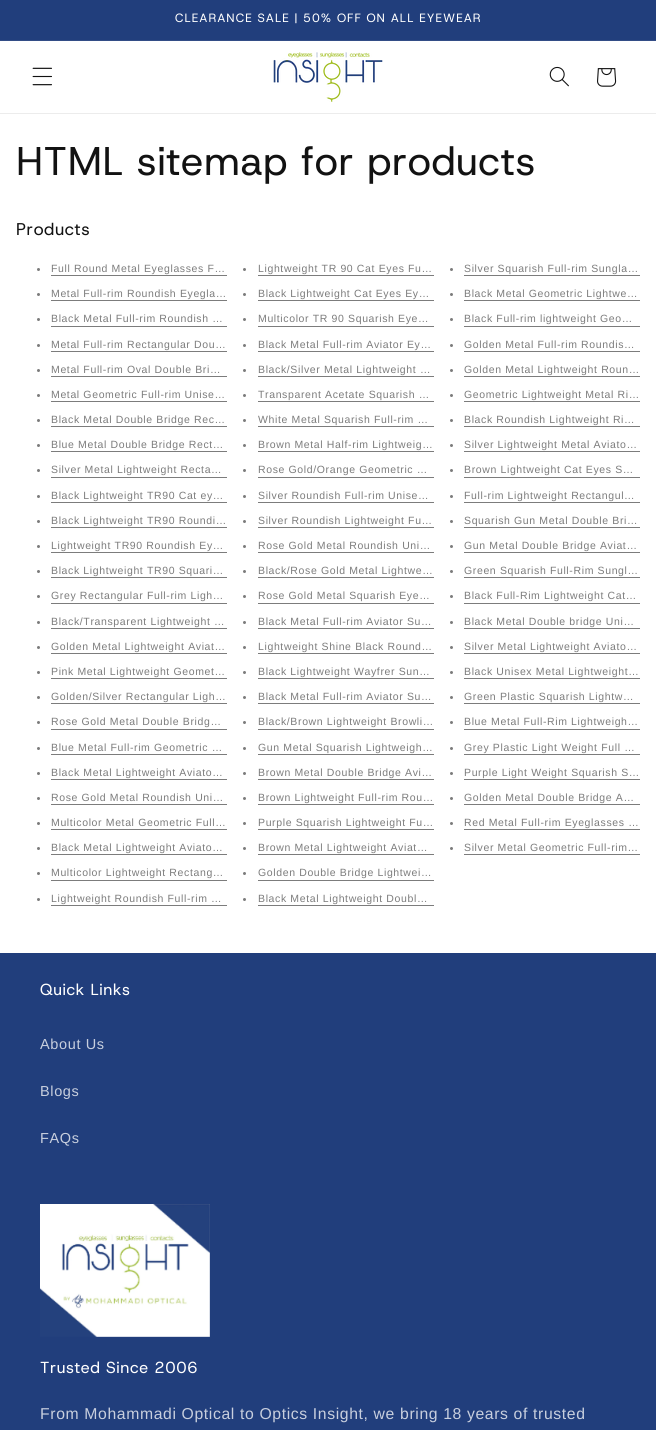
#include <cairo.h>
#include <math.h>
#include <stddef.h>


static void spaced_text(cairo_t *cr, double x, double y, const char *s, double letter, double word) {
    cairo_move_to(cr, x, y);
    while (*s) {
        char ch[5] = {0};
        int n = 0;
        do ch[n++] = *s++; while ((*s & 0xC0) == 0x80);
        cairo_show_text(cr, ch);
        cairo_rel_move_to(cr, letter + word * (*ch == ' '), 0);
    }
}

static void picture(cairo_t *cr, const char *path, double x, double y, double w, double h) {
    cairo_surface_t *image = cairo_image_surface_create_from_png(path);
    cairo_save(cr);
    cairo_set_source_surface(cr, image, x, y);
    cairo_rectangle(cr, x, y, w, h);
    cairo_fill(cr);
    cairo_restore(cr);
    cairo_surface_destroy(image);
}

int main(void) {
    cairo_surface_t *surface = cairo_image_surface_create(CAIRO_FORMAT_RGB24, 656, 1430);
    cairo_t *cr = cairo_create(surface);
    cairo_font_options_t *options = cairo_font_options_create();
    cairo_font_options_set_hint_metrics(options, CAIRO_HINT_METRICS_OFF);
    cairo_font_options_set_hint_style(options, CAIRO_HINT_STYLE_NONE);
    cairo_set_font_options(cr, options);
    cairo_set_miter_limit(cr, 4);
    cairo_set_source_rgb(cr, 1, 1, 1);
    cairo_paint(cr);
    cairo_set_source_rgb(cr, 0.129, 0.243, 0.486);
    cairo_rectangle(cr, 0, 0, 656, 40);
    cairo_fill(cr);
    cairo_set_source_rgb(cr, 0.2, 0.302, 0.525);
    cairo_rectangle(cr, 0, 40, 656, 1);
    cairo_fill(cr);
    cairo_select_font_face(cr, "Host Grotesk", CAIRO_FONT_SLANT_NORMAL, CAIRO_FONT_WEIGHT_NORMAL);
    cairo_set_font_size(cr, 12);
    cairo_set_source_rgb(cr, 1, 1, 1);
    spaced_text(cr, 175, 22, "CLEARANCE SALE | 50% OFF ON ALL EYEWEAR", 1.05, 0);
    cairo_set_source_rgb(cr, 0.925, 0.925, 0.925);
    cairo_rectangle(cr, 0, 113, 656, 1);
    cairo_fill(cr);
    picture(cr, "img1.png", 32, 67, 20, 19);
    picture(cr, "img2.png", 273, 52, 110, 50);
    picture(cr, "img3.png", 549, 66, 20, 21);
    picture(cr, "img4.png", 597, 68, 20, 19);
    cairo_set_font_size(cr, 40);
    cairo_set_source_rgb(cr, 0.071, 0.071, 0.071);
    spaced_text(cr, 16, 175, "HTML sitemap for products", 0.6, 0);
    cairo_set_font_size(cr, 17);
    spaced_text(cr, 16, 235, "Products", 0.6, 0);
    cairo_set_source_rgb(cr, 0.486, 0.486, 0.486);
    cairo_new_path(cr);
    cairo_arc(cr, 38.5, 269.5, 1.5, 0, 2 * M_PI);
    cairo_fill(cr);
    cairo_select_font_face(cr, "Liberation Sans", CAIRO_FONT_SLANT_NORMAL, CAIRO_FONT_WEIGHT_NORMAL);
    cairo_set_font_size(cr, 10.5);
    spaced_text(cr, 51, 272, "Full Round Metal Eyeglasses F…", 0.63, 0);
    cairo_rectangle(cr, 51, 275, 176, 1);
    cairo_fill(cr);
    cairo_arc(cr, 244.5, 269.5, 1.5, 0, 2 * M_PI);
    cairo_fill(cr);
    spaced_text(cr, 258, 272, "Lightweight TR 90 Cat Eyes Fu…", 0.63, 0);
    cairo_rectangle(cr, 258, 275, 176, 1);
    cairo_fill(cr);
    cairo_arc(cr, 451.5, 269.5, 1.5, 0, 2 * M_PI);
    cairo_fill(cr);
    spaced_text(cr, 464, 272, "Silver Squarish Full-rim Sungla…", 0.63, 0);
    cairo_rectangle(cr, 464, 275, 176, 1);
    cairo_fill(cr);
    cairo_arc(cr, 38.5, 294.5, 1.5, 0, 2 * M_PI);
    cairo_fill(cr);
    spaced_text(cr, 51, 297, "Metal Full-rim Roundish Eyegla…", 0.63, 0);
    cairo_rectangle(cr, 51, 300, 176, 1);
    cairo_fill(cr);
    cairo_arc(cr, 244.5, 294.5, 1.5, 0, 2 * M_PI);
    cairo_fill(cr);
    spaced_text(cr, 258, 297, "Black Lightweight Cat Eyes Ey…", 0.63, 0);
    cairo_rectangle(cr, 258, 300, 176, 1);
    cairo_fill(cr);
    cairo_arc(cr, 451.5, 294.5, 1.5, 0, 2 * M_PI);
    cairo_fill(cr);
    spaced_text(cr, 464, 297, "Black Metal Geometric Lightwe…", 0.63, 0);
    cairo_rectangle(cr, 464, 300, 176, 1);
    cairo_fill(cr);
    cairo_arc(cr, 38.5, 319.5, 1.5, 0, 2 * M_PI);
    cairo_fill(cr);
    spaced_text(cr, 51, 322, "Black Metal Full-rim Roundish …", 0.63, 0);
    cairo_rectangle(cr, 51, 326, 176, 1);
    cairo_fill(cr);
    cairo_arc(cr, 244.5, 319.5, 1.5, 0, 2 * M_PI);
    cairo_fill(cr);
    spaced_text(cr, 258, 322, "Multicolor TR 90 Squarish Eye…", 0.63, 0);
    cairo_rectangle(cr, 258, 326, 176, 1);
    cairo_fill(cr);
    cairo_arc(cr, 451.5, 319.5, 1.5, 0, 2 * M_PI);
    cairo_fill(cr);
    spaced_text(cr, 464, 322, "Black Full-rim lightweight Geo…", 0.63, 0);
    cairo_rectangle(cr, 464, 326, 176, 1);
    cairo_fill(cr);
    cairo_arc(cr, 38.5, 345.5, 1.5, 0, 2 * M_PI);
    cairo_fill(cr);
    spaced_text(cr, 51, 348, "Metal Full-rim Rectangular Dou…", 0.63, 0);
    cairo_rectangle(cr, 51, 351, 176, 1);
    cairo_fill(cr);
    cairo_arc(cr, 244.5, 345.5, 1.5, 0, 2 * M_PI);
    cairo_fill(cr);
    spaced_text(cr, 258, 348, "Black Metal Full-rim Aviator Ey…", 0.63, 0);
    cairo_rectangle(cr, 258, 351, 176, 1);
    cairo_fill(cr);
    cairo_arc(cr, 451.5, 345.5, 1.5, 0, 2 * M_PI);
    cairo_fill(cr);
    spaced_text(cr, 464, 348, "Golden Metal Full-rim Roundis…", 0.63, 0);
    cairo_rectangle(cr, 464, 351, 176, 1);
    cairo_fill(cr);
    cairo_arc(cr, 38.5, 370.5, 1.5, 0, 2 * M_PI);
    cairo_fill(cr);
    spaced_text(cr, 51, 373, "Metal Full-rim Oval Double Bri…", 0.63, 0);
    cairo_rectangle(cr, 51, 376, 176, 1);
    cairo_fill(cr);
    cairo_arc(cr, 244.5, 370.5, 1.5, 0, 2 * M_PI);
    cairo_fill(cr);
    spaced_text(cr, 258, 373, "Black/Silver Metal Lightweight …", 0.63, 0);
    cairo_rectangle(cr, 258, 376, 176, 1);
    cairo_fill(cr);
    cairo_arc(cr, 451.5, 370.5, 1.5, 0, 2 * M_PI);
    cairo_fill(cr);
    spaced_text(cr, 464, 373, "Golden Metal Lightweight Roun…", 0.63, 0);
    cairo_rectangle(cr, 464, 376, 176, 1);
    cairo_fill(cr);
    cairo_arc(cr, 38.5, 395.5, 1.5, 0, 2 * M_PI);
    cairo_fill(cr);
    spaced_text(cr, 51, 398, "Metal Geometric Full-rim Unise…", 0.63, 0);
    cairo_rectangle(cr, 51, 401, 176, 1);
    cairo_fill(cr);
    cairo_arc(cr, 244.5, 395.5, 1.5, 0, 2 * M_PI);
    cairo_fill(cr);
    spaced_text(cr, 258, 398, "Transparent Acetate Squarish …", 0.63, 0);
    cairo_rectangle(cr, 258, 401, 176, 1);
    cairo_fill(cr);
    cairo_arc(cr, 451.5, 395.5, 1.5, 0, 2 * M_PI);
    cairo_fill(cr);
    spaced_text(cr, 464, 398, "Geometric Lightweight Metal Ri…", 0.63, 0);
    cairo_rectangle(cr, 464, 401, 176, 1);
    cairo_fill(cr);
    cairo_arc(cr, 38.5, 420.5, 1.5, 0, 2 * M_PI);
    cairo_fill(cr);
    spaced_text(cr, 51, 423, "Black Metal Double Bridge Rec…", 0.63, 0);
    cairo_rectangle(cr, 51, 426, 176, 1);
    cairo_fill(cr);
    cairo_arc(cr, 244.5, 420.5, 1.5, 0, 2 * M_PI);
    cairo_fill(cr);
    spaced_text(cr, 258, 423, "White Metal Squarish Full-rim …", 0.63, 0);
    cairo_rectangle(cr, 258, 426, 176, 1);
    cairo_fill(cr);
    cairo_arc(cr, 451.5, 420.5, 1.5, 0, 2 * M_PI);
    cairo_fill(cr);
    spaced_text(cr, 464, 423, "Black Roundish Lightweight Ri…", 0.63, 0);
    cairo_rectangle(cr, 464, 426, 176, 1);
    cairo_fill(cr);
    cairo_arc(cr, 38.5, 445.5, 1.5, 0, 2 * M_PI);
    cairo_fill(cr);
    spaced_text(cr, 51, 448, "Blue Metal Double Bridge Rect…", 0.63, 0);
    cairo_rectangle(cr, 51, 451, 176, 1);
    cairo_fill(cr);
    cairo_arc(cr, 244.5, 445.5, 1.5, 0, 2 * M_PI);
    cairo_fill(cr);
    spaced_text(cr, 258, 448, "Brown Metal Half-rim Lightweig…", 0.63, 0);
    cairo_rectangle(cr, 258, 451, 176, 1);
    cairo_fill(cr);
    cairo_arc(cr, 451.5, 445.5, 1.5, 0, 2 * M_PI);
    cairo_fill(cr);
    spaced_text(cr, 464, 448, "Silver Lightweight Metal Aviato…", 0.63, 0);
    cairo_rectangle(cr, 464, 451, 176, 1);
    cairo_fill(cr);
    cairo_arc(cr, 38.5, 470.5, 1.5, 0, 2 * M_PI);
    cairo_fill(cr);
    spaced_text(cr, 51, 473, "Silver Metal Lightweight Recta…", 0.63, 0);
    cairo_rectangle(cr, 51, 477, 176, 1);
    cairo_fill(cr);
    cairo_arc(cr, 244.5, 470.5, 1.5, 0, 2 * M_PI);
    cairo_fill(cr);
    spaced_text(cr, 258, 473, "Rose Gold/Orange Geometric …", 0.63, 0);
    cairo_rectangle(cr, 258, 477, 176, 1);
    cairo_fill(cr);
    cairo_arc(cr, 451.5, 470.5, 1.5, 0, 2 * M_PI);
    cairo_fill(cr);
    spaced_text(cr, 464, 473, "Brown Lightweight Cat Eyes S…", 0.63, 0);
    cairo_rectangle(cr, 464, 477, 176, 1);
    cairo_fill(cr);
    cairo_arc(cr, 38.5, 496.5, 1.5, 0, 2 * M_PI);
    cairo_fill(cr);
    spaced_text(cr, 51, 499, "Black Lightweight TR90 Cat ey…", 0.63, 0);
    cairo_rectangle(cr, 51, 502, 176, 1);
    cairo_fill(cr);
    cairo_arc(cr, 244.5, 496.5, 1.5, 0, 2 * M_PI);
    cairo_fill(cr);
    spaced_text(cr, 258, 499, "Silver Roundish Full-rim Unise…", 0.63, 0);
    cairo_rectangle(cr, 258, 502, 176, 1);
    cairo_fill(cr);
    cairo_arc(cr, 451.5, 496.5, 1.5, 0, 2 * M_PI);
    cairo_fill(cr);
    spaced_text(cr, 464, 499, "Full-rim Lightweight Rectangul…", 0.63, 0);
    cairo_rectangle(cr, 464, 502, 176, 1);
    cairo_fill(cr);
    cairo_arc(cr, 38.5, 521.5, 1.5, 0, 2 * M_PI);
    cairo_fill(cr);
    spaced_text(cr, 51, 524, "Black Lightweight TR90 Roundi…", 0.63, 0);
    cairo_rectangle(cr, 51, 527, 176, 1);
    cairo_fill(cr);
    cairo_arc(cr, 244.5, 521.5, 1.5, 0, 2 * M_PI);
    cairo_fill(cr);
    spaced_text(cr, 258, 524, "Silver Roundish Lightweight Fu…", 0.63, 0);
    cairo_rectangle(cr, 258, 527, 176, 1);
    cairo_fill(cr);
    cairo_arc(cr, 451.5, 521.5, 1.5, 0, 2 * M_PI);
    cairo_fill(cr);
    spaced_text(cr, 464, 524, "Squarish Gun Metal Double Bri…", 0.63, 0);
    cairo_rectangle(cr, 464, 527, 176, 1);
    cairo_fill(cr);
    cairo_arc(cr, 38.5, 546.5, 1.5, 0, 2 * M_PI);
    cairo_fill(cr);
    spaced_text(cr, 51, 549, "Lightweight TR90 Roundish Ey…", 0.63, 0);
    cairo_rectangle(cr, 51, 552, 176, 1);
    cairo_fill(cr);
    cairo_arc(cr, 244.5, 546.5, 1.5, 0, 2 * M_PI);
    cairo_fill(cr);
    spaced_text(cr, 258, 549, "Rose Gold Metal Roundish Uni…", 0.63, 0);
    cairo_rectangle(cr, 258, 552, 176, 1);
    cairo_fill(cr);
    cairo_arc(cr, 451.5, 546.5, 1.5, 0, 2 * M_PI);
    cairo_fill(cr);
    spaced_text(cr, 464, 549, "Gun Metal Double Bridge Aviat…", 0.63, 0);
    cairo_rectangle(cr, 464, 552, 176, 1);
    cairo_fill(cr);
    cairo_arc(cr, 38.5, 571.5, 1.5, 0, 2 * M_PI);
    cairo_fill(cr);
    spaced_text(cr, 51, 574, "Black Lightweight TR90 Squari…", 0.63, 0);
    cairo_rectangle(cr, 51, 577, 176, 1);
    cairo_fill(cr);
    cairo_arc(cr, 244.5, 571.5, 1.5, 0, 2 * M_PI);
    cairo_fill(cr);
    spaced_text(cr, 258, 574, "Black/Rose Gold Metal Lightwe…", 0.63, 0);
    cairo_rectangle(cr, 258, 577, 176, 1);
    cairo_fill(cr);
    cairo_arc(cr, 451.5, 571.5, 1.5, 0, 2 * M_PI);
    cairo_fill(cr);
    spaced_text(cr, 464, 574, "Green Squarish Full-Rim Sungl…", 0.63, 0);
    cairo_rectangle(cr, 464, 577, 176, 1);
    cairo_fill(cr);
    cairo_arc(cr, 38.5, 596.5, 1.5, 0, 2 * M_PI);
    cairo_fill(cr);
    spaced_text(cr, 51, 599, "Grey Rectangular Full-rim Ligh…", 0.63, 0);
    cairo_rectangle(cr, 51, 603, 176, 1);
    cairo_fill(cr);
    cairo_arc(cr, 244.5, 596.5, 1.5, 0, 2 * M_PI);
    cairo_fill(cr);
    spaced_text(cr, 258, 599, "Rose Gold Metal Squarish Eye…", 0.63, 0);
    cairo_rectangle(cr, 258, 603, 176, 1);
    cairo_fill(cr);
    cairo_arc(cr, 451.5, 596.5, 1.5, 0, 2 * M_PI);
    cairo_fill(cr);
    spaced_text(cr, 464, 599, "Black Full-Rim Lightweight Cat…", 0.63, 0);
    cairo_rectangle(cr, 464, 603, 176, 1);
    cairo_fill(cr);
    cairo_arc(cr, 38.5, 622.5, 1.5, 0, 2 * M_PI);
    cairo_fill(cr);
    spaced_text(cr, 51, 625, "Black/Transparent Lightweight …", 0.63, 0);
    cairo_rectangle(cr, 51, 628, 176, 1);
    cairo_fill(cr);
    cairo_arc(cr, 244.5, 622.5, 1.5, 0, 2 * M_PI);
    cairo_fill(cr);
    spaced_text(cr, 258, 625, "Black Metal Full-rim Aviator Su…", 0.63, 0);
    cairo_rectangle(cr, 258, 628, 176, 1);
    cairo_fill(cr);
    cairo_arc(cr, 451.5, 622.5, 1.5, 0, 2 * M_PI);
    cairo_fill(cr);
    spaced_text(cr, 464, 625, "Black Metal Double bridge Uni…", 0.63, 0);
    cairo_rectangle(cr, 464, 628, 176, 1);
    cairo_fill(cr);
    cairo_arc(cr, 38.5, 647.5, 1.5, 0, 2 * M_PI);
    cairo_fill(cr);
    spaced_text(cr, 51, 650, "Golden Metal Lightweight Aviat…", 0.63, 0);
    cairo_rectangle(cr, 51, 653, 176, 1);
    cairo_fill(cr);
    cairo_arc(cr, 244.5, 647.5, 1.5, 0, 2 * M_PI);
    cairo_fill(cr);
    spaced_text(cr, 258, 650, "Lightweight Shine Black Round…", 0.63, 0);
    cairo_rectangle(cr, 258, 653, 176, 1);
    cairo_fill(cr);
    cairo_arc(cr, 451.5, 647.5, 1.5, 0, 2 * M_PI);
    cairo_fill(cr);
    spaced_text(cr, 464, 650, "Silver Metal Lightweight Aviato…", 0.63, 0);
    cairo_rectangle(cr, 464, 653, 176, 1);
    cairo_fill(cr);
    cairo_arc(cr, 38.5, 672.5, 1.5, 0, 2 * M_PI);
    cairo_fill(cr);
    spaced_text(cr, 51, 675, "Pink Metal Lightweight Geomet…", 0.63, 0);
    cairo_rectangle(cr, 51, 678, 176, 1);
    cairo_fill(cr);
    cairo_arc(cr, 244.5, 672.5, 1.5, 0, 2 * M_PI);
    cairo_fill(cr);
    spaced_text(cr, 258, 675, "Black Lightweight Wayfrer Sun…", 0.63, 0);
    cairo_rectangle(cr, 258, 678, 176, 1);
    cairo_fill(cr);
    cairo_arc(cr, 451.5, 672.5, 1.5, 0, 2 * M_PI);
    cairo_fill(cr);
    spaced_text(cr, 464, 675, "Black Unisex Metal Lightweight…", 0.63, 0);
    cairo_rectangle(cr, 464, 678, 176, 1);
    cairo_fill(cr);
    cairo_arc(cr, 38.5, 697.5, 1.5, 0, 2 * M_PI);
    cairo_fill(cr);
    spaced_text(cr, 51, 700, "Golden/Silver Rectangular Ligh…", 0.63, 0);
    cairo_rectangle(cr, 51, 703, 176, 1);
    cairo_fill(cr);
    cairo_arc(cr, 244.5, 697.5, 1.5, 0, 2 * M_PI);
    cairo_fill(cr);
    spaced_text(cr, 258, 700, "Black Metal Full-rim Aviator Su…", 0.63, 0);
    cairo_rectangle(cr, 258, 703, 176, 1);
    cairo_fill(cr);
    cairo_arc(cr, 451.5, 697.5, 1.5, 0, 2 * M_PI);
    cairo_fill(cr);
    spaced_text(cr, 464, 700, "Green Plastic Squarish Lightw…", 0.63, 0);
    cairo_rectangle(cr, 464, 703, 176, 1);
    cairo_fill(cr);
    cairo_arc(cr, 38.5, 722.5, 1.5, 0, 2 * M_PI);
    cairo_fill(cr);
    spaced_text(cr, 51, 725, "Rose Gold Metal Double Bridg…", 0.63, 0);
    cairo_rectangle(cr, 51, 729, 176, 1);
    cairo_fill(cr);
    cairo_arc(cr, 244.5, 722.5, 1.5, 0, 2 * M_PI);
    cairo_fill(cr);
    spaced_text(cr, 258, 725, "Black/Brown Lightweight Browli…", 0.63, 0);
    cairo_rectangle(cr, 258, 729, 176, 1);
    cairo_fill(cr);
    cairo_arc(cr, 451.5, 722.5, 1.5, 0, 2 * M_PI);
    cairo_fill(cr);
    spaced_text(cr, 464, 725, "Blue Metal Full-Rim Lightweigh…", 0.63, 0);
    cairo_rectangle(cr, 464, 729, 176, 1);
    cairo_fill(cr);
    cairo_arc(cr, 38.5, 748.5, 1.5, 0, 2 * M_PI);
    cairo_fill(cr);
    spaced_text(cr, 51, 751, "Blue Metal Full-rim Geometric …", 0.63, 0);
    cairo_rectangle(cr, 51, 754, 176, 1);
    cairo_fill(cr);
    cairo_arc(cr, 244.5, 748.5, 1.5, 0, 2 * M_PI);
    cairo_fill(cr);
    spaced_text(cr, 258, 751, "Gun Metal Squarish Lightweigh…", 0.63, 0);
    cairo_rectangle(cr, 258, 754, 176, 1);
    cairo_fill(cr);
    cairo_arc(cr, 451.5, 748.5, 1.5, 0, 2 * M_PI);
    cairo_fill(cr);
    spaced_text(cr, 464, 751, "Grey Plastic Light Weight Full …", 0.63, 0);
    cairo_rectangle(cr, 464, 754, 176, 1);
    cairo_fill(cr);
    cairo_arc(cr, 38.5, 773.5, 1.5, 0, 2 * M_PI);
    cairo_fill(cr);
    spaced_text(cr, 51, 776, "Black Metal Lightweight Aviato…", 0.63, 0);
    cairo_rectangle(cr, 51, 779, 176, 1);
    cairo_fill(cr);
    cairo_arc(cr, 244.5, 773.5, 1.5, 0, 2 * M_PI);
    cairo_fill(cr);
    spaced_text(cr, 258, 776, "Brown Metal Double Bridge Avi…", 0.63, 0);
    cairo_rectangle(cr, 258, 779, 176, 1);
    cairo_fill(cr);
    cairo_arc(cr, 451.5, 773.5, 1.5, 0, 2 * M_PI);
    cairo_fill(cr);
    spaced_text(cr, 464, 776, "Purple Light Weight Squarish S…", 0.63, 0);
    cairo_rectangle(cr, 464, 779, 176, 1);
    cairo_fill(cr);
    cairo_arc(cr, 38.5, 798.5, 1.5, 0, 2 * M_PI);
    cairo_fill(cr);
    spaced_text(cr, 51, 801, "Rose Gold Metal Roundish Uni…", 0.63, 0);
    cairo_rectangle(cr, 51, 804, 176, 1);
    cairo_fill(cr);
    cairo_arc(cr, 244.5, 798.5, 1.5, 0, 2 * M_PI);
    cairo_fill(cr);
    spaced_text(cr, 258, 801, "Brown Lightweight Full-rim Rou…", 0.63, 0);
    cairo_rectangle(cr, 258, 804, 176, 1);
    cairo_fill(cr);
    cairo_arc(cr, 451.5, 798.5, 1.5, 0, 2 * M_PI);
    cairo_fill(cr);
    spaced_text(cr, 464, 801, "Golden Metal Double Bridge A…", 0.63, 0);
    cairo_rectangle(cr, 464, 804, 176, 1);
    cairo_fill(cr);
    cairo_arc(cr, 38.5, 823.5, 1.5, 0, 2 * M_PI);
    cairo_fill(cr);
    spaced_text(cr, 51, 826, "Multicolor Metal Geometric Full…", 0.63, 0);
    cairo_rectangle(cr, 51, 829, 176, 1);
    cairo_fill(cr);
    cairo_arc(cr, 244.5, 823.5, 1.5, 0, 2 * M_PI);
    cairo_fill(cr);
    spaced_text(cr, 258, 826, "Purple Squarish Lightweight Fu…", 0.63, 0);
    cairo_rectangle(cr, 258, 829, 176, 1);
    cairo_fill(cr);
    cairo_arc(cr, 451.5, 823.5, 1.5, 0, 2 * M_PI);
    cairo_fill(cr);
    spaced_text(cr, 464, 826, "Red Metal Full-rim Eyeglasses …", 0.63, 0);
    cairo_rectangle(cr, 464, 829, 176, 1);
    cairo_fill(cr);
    cairo_arc(cr, 38.5, 848.5, 1.5, 0, 2 * M_PI);
    cairo_fill(cr);
    spaced_text(cr, 51, 851, "Black Metal Lightweight Aviato…", 0.63, 0);
    cairo_rectangle(cr, 51, 854, 176, 1);
    cairo_fill(cr);
    cairo_arc(cr, 244.5, 848.5, 1.5, 0, 2 * M_PI);
    cairo_fill(cr);
    spaced_text(cr, 258, 851, "Brown Metal Lightweight Aviat…", 0.63, 0);
    cairo_rectangle(cr, 258, 854, 176, 1);
    cairo_fill(cr);
    cairo_arc(cr, 451.5, 848.5, 1.5, 0, 2 * M_PI);
    cairo_fill(cr);
    spaced_text(cr, 464, 851, "Silver Metal Geometric Full-rim…", 0.63, 0);
    cairo_rectangle(cr, 464, 854, 176, 1);
    cairo_fill(cr);
    cairo_arc(cr, 38.5, 873.5, 1.5, 0, 2 * M_PI);
    cairo_fill(cr);
    spaced_text(cr, 51, 876, "Multicolor Lightweight Rectang…", 0.63, 0);
    cairo_rectangle(cr, 51, 880, 176, 1);
    cairo_fill(cr);
    cairo_arc(cr, 244.5, 873.5, 1.5, 0, 2 * M_PI);
    cairo_fill(cr);
    spaced_text(cr, 258, 876, "Golden Double Bridge Lightwei…", 0.63, 0);
    cairo_rectangle(cr, 258, 880, 176, 1);
    cairo_fill(cr);
    cairo_arc(cr, 38.5, 899.5, 1.5, 0, 2 * M_PI);
    cairo_fill(cr);
    spaced_text(cr, 51, 902, "Lightweight Roundish Full-rim …", 0.63, 0);
    cairo_rectangle(cr, 51, 905, 176, 1);
    cairo_fill(cr);
    cairo_arc(cr, 244.5, 899.5, 1.5, 0, 2 * M_PI);
    cairo_fill(cr);
    spaced_text(cr, 258, 902, "Black Metal Lightweight Doubl…", 0.63, 0);
    cairo_rectangle(cr, 258, 905, 176, 1);
    cairo_fill(cr);
    cairo_set_source_rgb(cr, 0.129, 0.243, 0.486);
    cairo_rectangle(cr, 0, 953, 656, 477);
    cairo_fill(cr);
    cairo_select_font_face(cr, "Host Grotesk", CAIRO_FONT_SLANT_NORMAL, CAIRO_FONT_WEIGHT_NORMAL);
    cairo_set_font_size(cr, 16);
    cairo_set_source_rgb(cr, 1, 1, 1);
    spaced_text(cr, 40, 995, "Quick Links", 0.6, 0);
    cairo_select_font_face(cr, "Liberation Sans", CAIRO_FONT_SLANT_NORMAL, CAIRO_FONT_WEIGHT_NORMAL);
    cairo_set_font_size(cr, 14.5);
    cairo_set_source_rgb(cr, 0.784, 0.812, 0.871);
    spaced_text(cr, 40, 1049, "About Us", 0.63, 0);
    spaced_text(cr, 40, 1096, "Blogs", 0.63, 0);
    spaced_text(cr, 40, 1143, "FAQs", 0.63, 0);
    picture(cr, "img5.png", 40, 1204, 170, 133);
    cairo_select_font_face(cr, "Host Grotesk", CAIRO_FONT_SLANT_NORMAL, CAIRO_FONT_WEIGHT_NORMAL);
    cairo_set_font_size(cr, 16);
    cairo_set_source_rgb(cr, 1, 1, 1);
    spaced_text(cr, 40, 1373, "Trusted Since 2006", 0.6, 0);
    cairo_select_font_face(cr, "Liberation Sans", CAIRO_FONT_SLANT_NORMAL, CAIRO_FONT_WEIGHT_NORMAL);
    cairo_set_font_size(cr, 15.75);
    cairo_set_source_rgb(cr, 0.784, 0.812, 0.871);
    spaced_text(cr, 40, 1419, "From Mohammadi Optical to Optics Insight, we bring 18 years of trusted", 0.63, 0);
    cairo_surface_write_to_png(surface, "page.png");
    cairo_font_options_destroy(options);
    cairo_destroy(cr);
    cairo_surface_destroy(surface);
    return 0;
}
